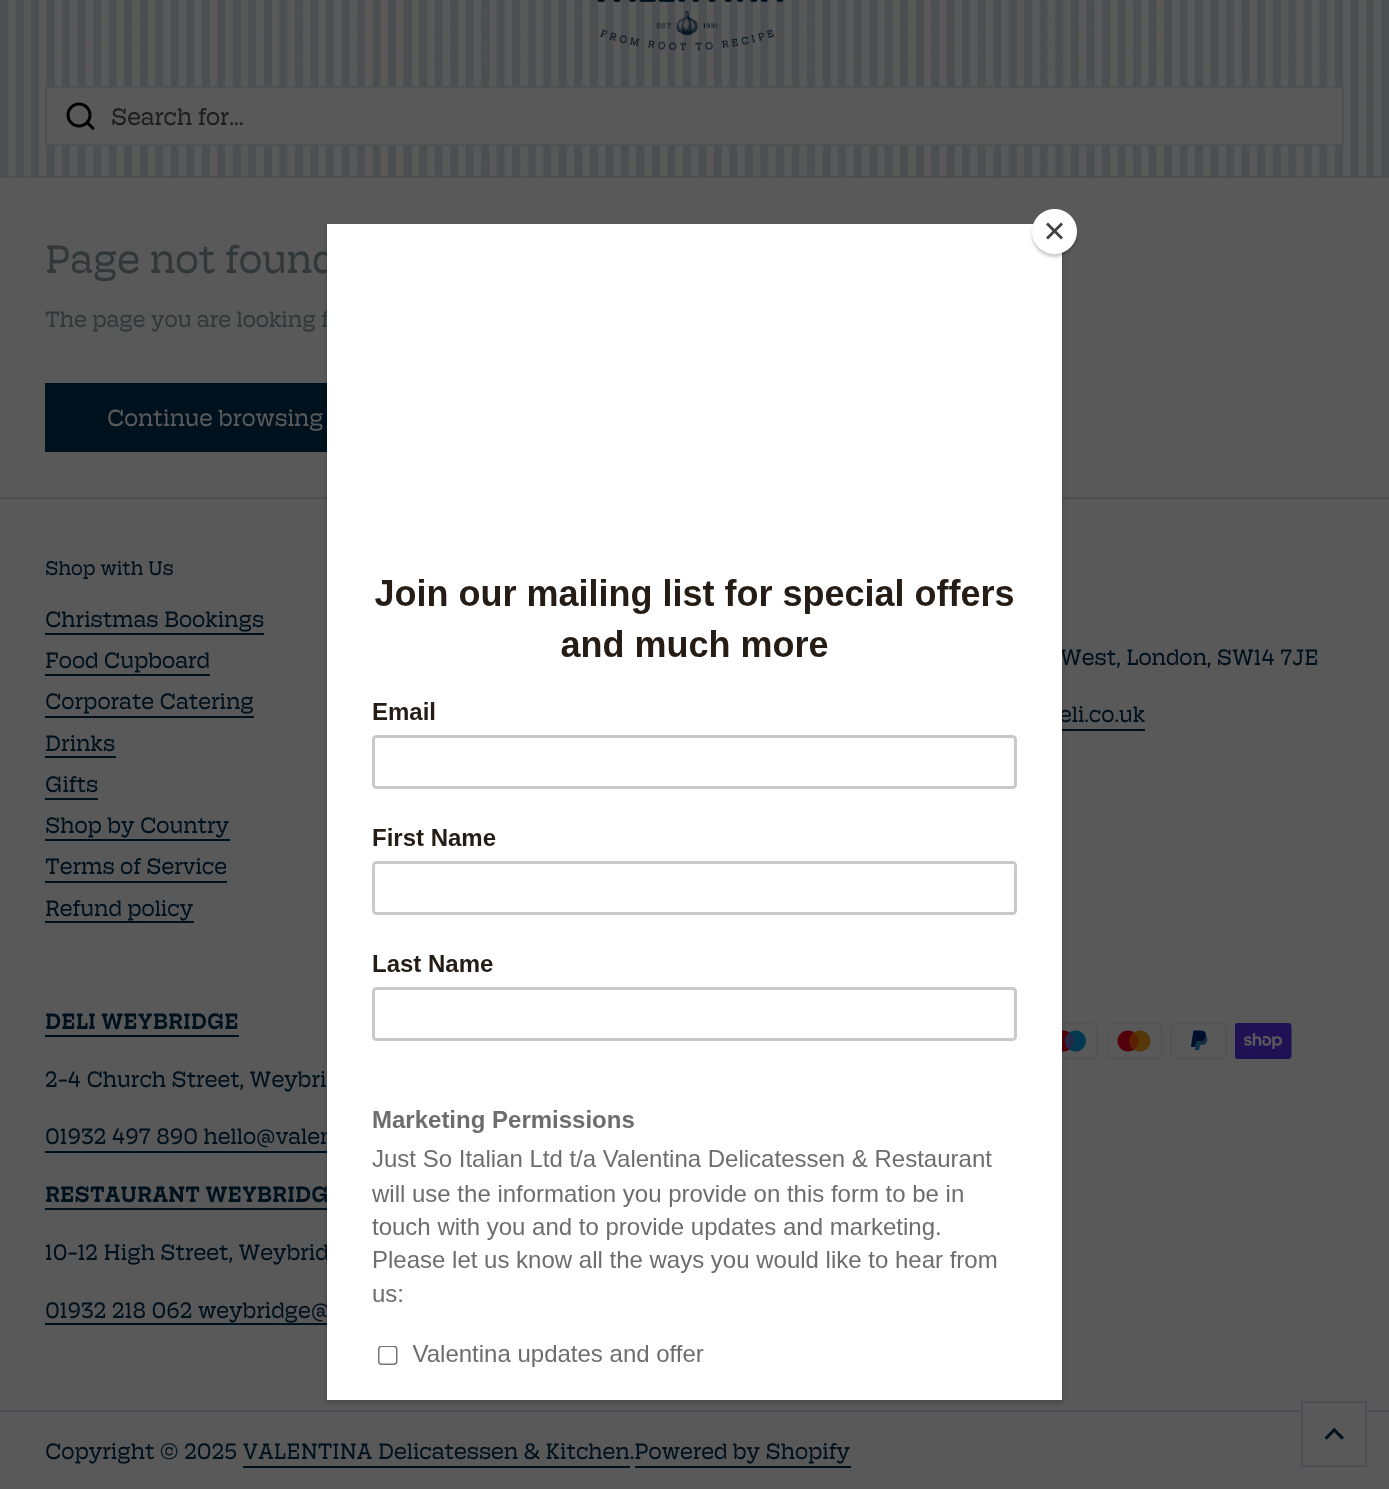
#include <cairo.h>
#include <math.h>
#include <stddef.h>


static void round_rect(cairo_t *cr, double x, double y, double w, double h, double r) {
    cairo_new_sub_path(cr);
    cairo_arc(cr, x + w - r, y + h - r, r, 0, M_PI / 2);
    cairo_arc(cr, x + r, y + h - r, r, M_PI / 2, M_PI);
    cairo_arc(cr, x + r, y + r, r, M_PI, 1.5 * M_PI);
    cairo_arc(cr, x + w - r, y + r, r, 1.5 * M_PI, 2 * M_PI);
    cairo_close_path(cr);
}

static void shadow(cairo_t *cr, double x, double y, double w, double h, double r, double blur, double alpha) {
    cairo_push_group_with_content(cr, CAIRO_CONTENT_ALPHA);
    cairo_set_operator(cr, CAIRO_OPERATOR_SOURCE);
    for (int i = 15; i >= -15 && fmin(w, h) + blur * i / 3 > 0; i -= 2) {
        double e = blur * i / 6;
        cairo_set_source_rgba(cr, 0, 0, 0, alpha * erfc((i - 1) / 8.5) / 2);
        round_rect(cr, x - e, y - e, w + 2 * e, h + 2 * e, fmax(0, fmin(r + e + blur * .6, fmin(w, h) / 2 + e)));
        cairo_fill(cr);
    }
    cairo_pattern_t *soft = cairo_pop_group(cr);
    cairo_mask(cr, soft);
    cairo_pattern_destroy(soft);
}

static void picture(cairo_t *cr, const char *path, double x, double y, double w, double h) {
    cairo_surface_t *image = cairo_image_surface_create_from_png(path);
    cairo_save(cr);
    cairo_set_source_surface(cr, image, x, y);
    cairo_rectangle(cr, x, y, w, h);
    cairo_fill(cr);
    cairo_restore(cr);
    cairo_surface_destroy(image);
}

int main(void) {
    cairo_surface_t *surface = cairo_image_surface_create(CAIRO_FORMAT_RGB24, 1389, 1489);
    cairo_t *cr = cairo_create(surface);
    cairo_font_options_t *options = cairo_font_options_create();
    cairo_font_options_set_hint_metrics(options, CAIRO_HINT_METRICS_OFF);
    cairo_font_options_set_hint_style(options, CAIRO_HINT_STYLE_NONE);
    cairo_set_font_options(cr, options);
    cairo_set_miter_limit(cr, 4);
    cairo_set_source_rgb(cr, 0.349, 0.349, 0.349);
    cairo_paint(cr);
    picture(cr, "img1.png", 0, 0, 1389, 85);
    picture(cr, "img2.png", 597, 0, 187, 51);
    picture(cr, "img3.png", 0, 85, 1389, 92);
    cairo_set_source_rgba(cr, 0, 0, 0, 0.1);
    cairo_rectangle(cr, 0, 176, 1389, 2);
    cairo_fill(cr);
    cairo_set_source_rgb(cr, 0.349, 0.349, 0.349);
    cairo_rectangle(cr, 46, 87, 1297, 58);
    cairo_fill_preserve(cr);
    cairo_set_source_rgb(cr, 0.318, 0.318, 0.318);
    cairo_stroke(cr);
    picture(cr, "img4.png", 66, 102, 29, 28);
    cairo_select_font_face(cr, "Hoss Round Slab", CAIRO_FONT_SLANT_NORMAL, CAIRO_FONT_WEIGHT_NORMAL);
    cairo_set_font_size(cr, 24);
    cairo_set_source_rgb(cr, 0.118, 0.118, 0.118);
    cairo_move_to(cr, 111, 125);
    cairo_show_text(cr, "Search for...");
    cairo_set_font_size(cr, 40);
    cairo_set_source_rgb(cr, 0.196, 0.216, 0.216);
    cairo_move_to(cr, 45, 273);
    cairo_show_text(cr, "Page not found");
    cairo_set_font_size(cr, 22.5);
    cairo_move_to(cr, 45, 327);
    cairo_show_text(cr, "The page you are looking f");
    cairo_set_source_rgb(cr, 0, 0.067, 0.118);
    cairo_rectangle(cr, 45, 383, 282, 69);
    cairo_fill(cr);
    cairo_set_font_size(cr, 23.6);
    cairo_set_source_rgb(cr, 0.349, 0.349, 0.349);
    cairo_move_to(cr, 107, 426);
    cairo_show_text(cr, "Continue browsing");
    cairo_set_source_rgb(cr, 0.298, 0.306, 0.318);
    cairo_rectangle(cr, 0, 497, 1389, 2);
    cairo_fill(cr);
    cairo_set_source_rgb(cr, 0, 0.067, 0.118);
    cairo_rectangle(cr, 1062, 729, 83, 2);
    cairo_fill(cr);
    cairo_rectangle(cr, 45, 1151, 282, 2);
    cairo_fill(cr);
    cairo_rectangle(cr, 45, 1208, 282, 2);
    cairo_fill(cr);
    cairo_rectangle(cr, 45, 1323, 282, 2);
    cairo_fill(cr);
    picture(cr, "img6.png", 1062, 1023, 36, 36);
    cairo_set_source_rgb(cr, 0.298, 0.306, 0.318);
    cairo_rectangle(cr, 0, 1410, 1389, 2);
    cairo_fill(cr);
    cairo_set_source_rgb(cr, 0, 0, 0);
    shadow(cr, 327, 227, 735, 1176, 0, 3, 0.2);
    cairo_set_font_size(cr, 22.5);
    cairo_set_source_rgb(cr, 0, 0.067, 0.118);
    cairo_move_to(cr, 1060, 665);
    cairo_show_text(cr, "West, London, SW14 7JE");
    cairo_move_to(cr, 1059, 722);
    cairo_show_text(cr, "eli.co.uk");
    cairo_move_to(cr, 45, 1144);
    cairo_show_text(cr, "01932 497 890 hello@valen");
    cairo_move_to(cr, 45, 1260);
    cairo_show_text(cr, "10-12 High Street, Weybrid");
    cairo_move_to(cr, 45, 1318);
    cairo_show_text(cr, "01932 218 062 weybridge@");
    picture(cr, "img5.png", 327, 224, 735, 1176);
    cairo_set_source_rgb(cr, 0, 0, 0);
    shadow(cr, 1032, 212, 45, 45, 22.5, 1.5, 0.2);
    cairo_set_source_rgb(cr, 1, 1, 1);
    cairo_arc(cr, 1054.5, 231.5, 22.5, 0, 2 * M_PI);
    cairo_fill(cr);
    cairo_set_source_rgb(cr, 0.255, 0.255, 0.255);
    cairo_new_path(cr);
    cairo_move_to(cr, 1061, 222.5);
    cairo_line_to(cr, 1063, 224.5);
    cairo_line_to(cr, 1048, 239.5);
    cairo_line_to(cr, 1046, 237.5);
    cairo_close_path(cr);
    cairo_fill(cr);
    cairo_new_path(cr);
    cairo_move_to(cr, 1046, 224.5);
    cairo_line_to(cr, 1048, 222.5);
    cairo_line_to(cr, 1063, 237.5);
    cairo_line_to(cr, 1061, 239.5);
    cairo_close_path(cr);
    cairo_fill(cr);
    cairo_set_font_size(cr, 20);
    cairo_set_source_rgb(cr, 0, 0.067, 0.118);
    cairo_move_to(cr, 45, 575);
    cairo_show_text(cr, "Shop with Us");
    cairo_set_font_size(cr, 22.5);
    cairo_move_to(cr, 45, 627);
    cairo_show_text(cr, "Christmas Bookings");
    cairo_rectangle(cr, 45, 633, 219, 2);
    cairo_fill(cr);
    cairo_move_to(cr, 45, 668);
    cairo_show_text(cr, "Food Cupboard");
    cairo_rectangle(cr, 45, 674, 165, 2);
    cairo_fill(cr);
    cairo_move_to(cr, 45, 709);
    cairo_show_text(cr, "Corporate Catering");
    cairo_rectangle(cr, 45, 716, 209, 2);
    cairo_fill(cr);
    cairo_move_to(cr, 45, 751);
    cairo_show_text(cr, "Drinks");
    cairo_rectangle(cr, 45, 756, 71, 2);
    cairo_fill(cr);
    cairo_move_to(cr, 45, 792);
    cairo_show_text(cr, "Gifts");
    cairo_rectangle(cr, 45, 798, 53, 2);
    cairo_fill(cr);
    cairo_move_to(cr, 45, 833);
    cairo_show_text(cr, "Shop by Country");
    cairo_rectangle(cr, 45, 839, 185, 2);
    cairo_fill(cr);
    cairo_move_to(cr, 45, 874);
    cairo_show_text(cr, "Terms of Service");
    cairo_rectangle(cr, 45, 881, 182, 2);
    cairo_fill(cr);
    cairo_move_to(cr, 45, 916);
    cairo_show_text(cr, "Refund policy");
    cairo_rectangle(cr, 45, 921, 149, 2);
    cairo_fill(cr);
    cairo_select_font_face(cr, "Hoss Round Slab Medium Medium", CAIRO_FONT_SLANT_NORMAL, CAIRO_FONT_WEIGHT_NORMAL);
    cairo_move_to(cr, 45, 1029);
    cairo_show_text(cr, "DELI WEYBRIDGE");
    cairo_rectangle(cr, 45, 1035, 194, 2);
    cairo_fill(cr);
    cairo_select_font_face(cr, "Hoss Round Slab", CAIRO_FONT_SLANT_NORMAL, CAIRO_FONT_WEIGHT_NORMAL);
    cairo_move_to(cr, 45, 1087);
    cairo_show_text(cr, "2-4 Church Street, Weybri");
    cairo_select_font_face(cr, "Hoss Round Slab Medium Medium", CAIRO_FONT_SLANT_NORMAL, CAIRO_FONT_WEIGHT_NORMAL);
    cairo_move_to(cr, 45, 1202);
    cairo_show_text(cr, "RESTAURANT WEYBRIDG");
    picture(cr, "img7.png", 1106, 1023, 57, 36);
    picture(cr, "img8.png", 1170, 1023, 57, 36);
    picture(cr, "img9.png", 1235, 1023, 57, 36);
    cairo_select_font_face(cr, "Hoss Round Slab", CAIRO_FONT_SLANT_NORMAL, CAIRO_FONT_WEIGHT_NORMAL);
    cairo_move_to(cr, 45, 1459);
    cairo_show_text(cr, "Copyright © 2025 VALENTINA Delicatessen & Kitchen.Powered by Shopify");
    cairo_rectangle(cr, 243, 1466, 387, 2);
    cairo_fill(cr);
    cairo_rectangle(cr, 635, 1466, 216, 2);
    cairo_fill(cr);
    cairo_set_source_rgb(cr, 0.349, 0.349, 0.349);
    cairo_rectangle(cr, 1303, 1410, 62, 2);
    cairo_fill(cr);
    cairo_rectangle(cr, 1302, 1402, 64, 64);
    cairo_set_source_rgb(cr, 0.298, 0.306, 0.318);
    cairo_stroke(cr);
    picture(cr, "img10.png", 1325, 1428, 19, 12);
    cairo_surface_write_to_png(surface, "page.png");
    cairo_font_options_destroy(options);
    cairo_destroy(cr);
    cairo_surface_destroy(surface);
    return 0;
}
